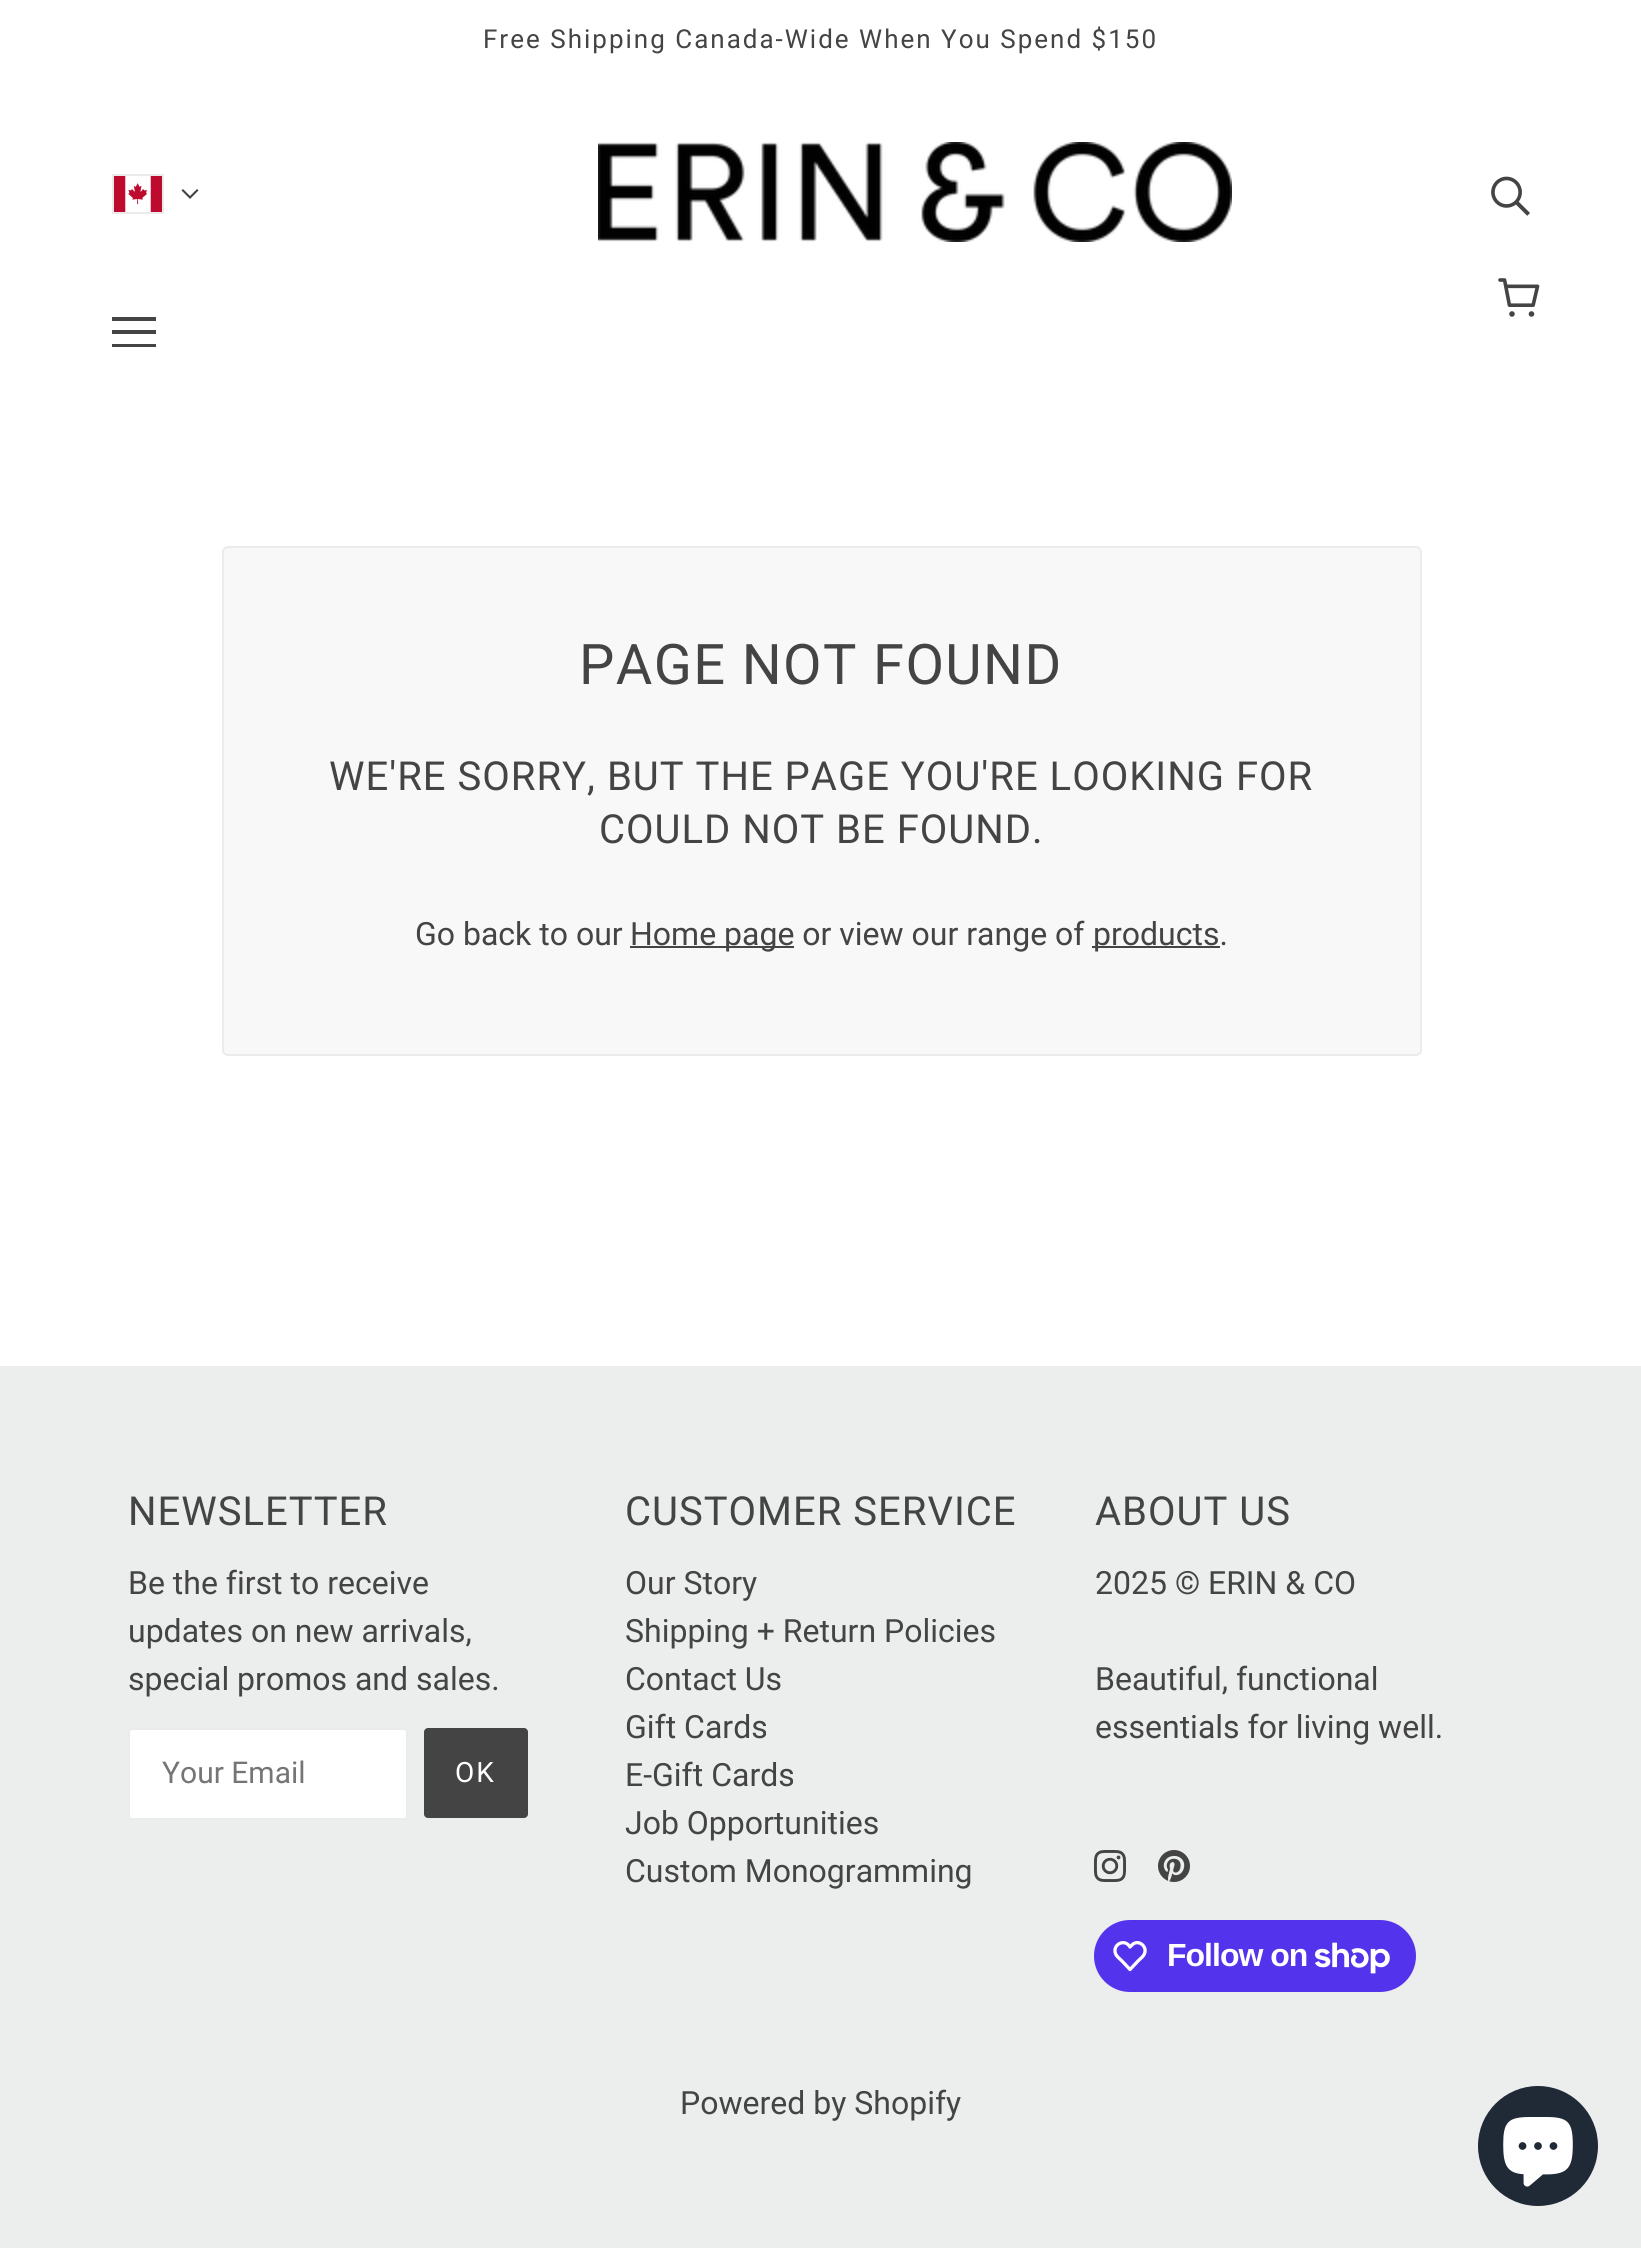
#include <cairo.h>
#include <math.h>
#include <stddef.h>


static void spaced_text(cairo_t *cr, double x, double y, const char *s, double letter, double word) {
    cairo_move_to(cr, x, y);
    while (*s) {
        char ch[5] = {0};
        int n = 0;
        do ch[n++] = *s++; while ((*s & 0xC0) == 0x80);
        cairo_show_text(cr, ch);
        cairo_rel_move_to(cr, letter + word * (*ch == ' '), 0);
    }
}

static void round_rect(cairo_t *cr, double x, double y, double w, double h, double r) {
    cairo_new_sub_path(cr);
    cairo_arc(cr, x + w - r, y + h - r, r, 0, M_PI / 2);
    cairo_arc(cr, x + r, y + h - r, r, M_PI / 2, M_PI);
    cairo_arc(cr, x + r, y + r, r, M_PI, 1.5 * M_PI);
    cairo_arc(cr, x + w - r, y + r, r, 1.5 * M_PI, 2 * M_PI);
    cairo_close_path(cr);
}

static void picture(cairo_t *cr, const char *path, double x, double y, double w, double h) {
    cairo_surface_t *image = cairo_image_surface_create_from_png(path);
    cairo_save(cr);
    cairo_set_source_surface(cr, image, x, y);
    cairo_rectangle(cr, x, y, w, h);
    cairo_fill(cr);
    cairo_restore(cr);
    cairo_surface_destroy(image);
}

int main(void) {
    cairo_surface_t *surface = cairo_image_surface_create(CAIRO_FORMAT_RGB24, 1641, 2248);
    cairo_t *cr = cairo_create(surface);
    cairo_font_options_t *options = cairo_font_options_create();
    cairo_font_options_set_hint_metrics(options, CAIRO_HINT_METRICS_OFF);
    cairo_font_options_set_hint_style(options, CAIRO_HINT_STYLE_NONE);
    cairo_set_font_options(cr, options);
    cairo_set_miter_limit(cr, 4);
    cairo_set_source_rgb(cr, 1, 1, 1);
    cairo_paint(cr);
    cairo_select_font_face(cr, "Roboto", CAIRO_FONT_SLANT_NORMAL, CAIRO_FONT_WEIGHT_NORMAL);
    cairo_set_font_size(cr, 26);
    cairo_set_source_rgb(cr, 0.267, 0.267, 0.267);
    spaced_text(cr, 483, 48, "Free Shipping Canada-Wide When You Spend $150", 2, 0);
    cairo_rectangle(cr, 113, 175, 50, 38);
    cairo_set_source_rgb(cr, 0.918, 0.918, 0.918);
    cairo_stroke(cr);
    picture(cr, "img1.png", 114, 176, 48, 36);
    cairo_set_source_rgb(cr, 0.267, 0.267, 0.267);
    cairo_new_path(cr);
    cairo_move_to(cr, 190, 196);
    cairo_line_to(cr, 197, 189);
    cairo_line_to(cr, 198.5, 190.5);
    cairo_line_to(cr, 190, 199);
    cairo_line_to(cr, 181.5, 190.5);
    cairo_line_to(cr, 183, 189);
    cairo_close_path(cr);
    cairo_fill(cr);
    picture(cr, "img2.png", 598, 142, 634, 100);
    picture(cr, "img3.png", 1491, 176, 39, 40);
    picture(cr, "img4.png", 1498, 278, 42, 39);
    cairo_new_path(cr);
    cairo_move_to(cr, 112, 321);
    cairo_line_to(cr, 112, 317);
    cairo_line_to(cr, 156, 317);
    cairo_line_to(cr, 156, 321);
    cairo_close_path(cr);
    cairo_move_to(cr, 112, 334);
    cairo_line_to(cr, 112, 330);
    cairo_line_to(cr, 156, 330);
    cairo_line_to(cr, 156, 334);
    cairo_close_path(cr);
    cairo_move_to(cr, 112, 347);
    cairo_line_to(cr, 112, 344);
    cairo_line_to(cr, 156, 344);
    cairo_line_to(cr, 156, 347);
    cairo_close_path(cr);
    cairo_fill(cr);
    cairo_set_source_rgb(cr, 0.969, 0.969, 0.969);
    round_rect(cr, 223, 547, 1198, 508, 5);
    cairo_fill_preserve(cr);
    cairo_set_source_rgb(cr, 0.918, 0.918, 0.918);
    cairo_stroke(cr);
    cairo_set_font_size(cr, 56);
    cairo_set_source_rgb(cr, 0.267, 0.267, 0.267);
    spaced_text(cr, 579, 684, "PAGE NOT FOUND", 1.4, 0);
    cairo_set_font_size(cr, 40);
    spaced_text(cr, 329, 790, "WE'RE SORRY, BUT THE PAGE YOU'RE LOOKING FOR", 1, 0);
    spaced_text(cr, 599, 843, "COULD NOT BE FOUND.", 1, 0);
    cairo_set_font_size(cr, 32);
    cairo_move_to(cr, 415, 945);
    cairo_show_text(cr, "Go back to our");
    cairo_rectangle(cr, 630, 946, 164, 2);
    cairo_fill(cr);
    cairo_move_to(cr, 630, 945);
    cairo_show_text(cr, "Home page or view our range of");
    cairo_rectangle(cr, 1092, 946, 128, 2);
    cairo_fill(cr);
    cairo_move_to(cr, 1093, 945);
    cairo_show_text(cr, "products.");
    cairo_set_source_rgb(cr, 0.925, 0.929, 0.929);
    cairo_rectangle(cr, 0, 1366, 1641, 882);
    cairo_fill(cr);
    cairo_set_font_size(cr, 40);
    cairo_set_source_rgb(cr, 0.267, 0.267, 0.267);
    spaced_text(cr, 128, 1525, "NEWSLETTER", 1, 0);
    cairo_set_font_size(cr, 32);
    cairo_move_to(cr, 128, 1594);
    cairo_show_text(cr, "Be the first to receive");
    cairo_move_to(cr, 128, 1642);
    cairo_show_text(cr, "updates on new arrivals,");
    cairo_move_to(cr, 128, 1690);
    cairo_show_text(cr, "special promos and sales.");
    cairo_set_source_rgb(cr, 1, 1, 1);
    round_rect(cr, 129, 1729, 278, 90, 3);
    cairo_fill_preserve(cr);
    cairo_set_source_rgb(cr, 0.918, 0.918, 0.918);
    cairo_stroke(cr);
    cairo_set_font_size(cr, 30);
    cairo_set_source_rgb(cr, 0.459, 0.459, 0.459);
    cairo_move_to(cr, 162, 1783);
    cairo_show_text(cr, "Your Email");
    cairo_set_source_rgb(cr, 0.267, 0.267, 0.267);
    round_rect(cr, 424, 1728, 104, 90, 4);
    cairo_fill(cr);
    cairo_set_font_size(cr, 28);
    cairo_set_source_rgb(cr, 1, 1, 1);
    spaced_text(cr, 455, 1782, "OK", 2, 0);
    cairo_set_font_size(cr, 40);
    cairo_set_source_rgb(cr, 0.267, 0.267, 0.267);
    spaced_text(cr, 625, 1525, "CUSTOMER SERVICE", 1, 0);
    cairo_set_font_size(cr, 32);
    cairo_move_to(cr, 625, 1594);
    cairo_show_text(cr, "Our Story");
    cairo_move_to(cr, 625, 1642);
    cairo_show_text(cr, "Shipping + Return Policies");
    cairo_move_to(cr, 625, 1690);
    cairo_show_text(cr, "Contact Us");
    cairo_move_to(cr, 625, 1738);
    cairo_show_text(cr, "Gift Cards");
    cairo_move_to(cr, 625, 1786);
    cairo_show_text(cr, "E-Gift Cards");
    cairo_move_to(cr, 625, 1834);
    cairo_show_text(cr, "Job Opportunities");
    cairo_move_to(cr, 625, 1882);
    cairo_show_text(cr, "Custom Monogramming");
    cairo_set_font_size(cr, 40);
    spaced_text(cr, 1095, 1525, "ABOUT US", 1, 0);
    cairo_set_font_size(cr, 32);
    cairo_move_to(cr, 1095, 1594);
    cairo_show_text(cr, "2025 © ERIN & CO");
    cairo_move_to(cr, 1095, 1690);
    cairo_show_text(cr, "Beautiful, functional");
    cairo_move_to(cr, 1095, 1738);
    cairo_show_text(cr, "essentials for living well.");
    picture(cr, "img5.png", 1094, 1850, 32, 32);
    picture(cr, "img6.png", 1158, 1850, 32, 32);
    cairo_set_source_rgb(cr, 0.329, 0.2, 0.922);
    round_rect(cr, 1094, 1920, 322, 72, 36);
    cairo_fill(cr);
    cairo_new_path(cr);
    cairo_move_to(cr, 1128.5, 1945);
    cairo_line_to(cr, 1130, 1947);
    cairo_curve_to(cr, 1131.5, 1945.5, 1133, 1943.5, 1135, 1943);
    cairo_curve_to(cr, 1141, 1941, 1147, 1947.5, 1144.5, 1953.5);
    cairo_curve_to(cr, 1143.5, 1956.5, 1140.5, 1958.5, 1138.5, 1960.5);
    cairo_line_to(cr, 1130, 1969.5);
    cairo_line_to(cr, 1121.5, 1960.5);
    cairo_curve_to(cr, 1119.5, 1958.5, 1116.5, 1956.5, 1115.5, 1953.5);
    cairo_curve_to(cr, 1112.5, 1945.5, 1122.5, 1939, 1128.5, 1945);
    cairo_close_path(cr);
    cairo_set_source_rgb(cr, 1, 1, 1);
    cairo_set_line_width(cr, 3.3);
    cairo_set_line_join(cr, CAIRO_LINE_JOIN_ROUND);
    cairo_stroke(cr);
    cairo_select_font_face(cr, "Liberation Sans", CAIRO_FONT_SLANT_NORMAL, CAIRO_FONT_WEIGHT_BOLD);
    spaced_text(cr, 1167, 1966, "Follow on", -1, 0);
    picture(cr, "img7.png", 1315, 1942, 75, 32);
    cairo_select_font_face(cr, "Roboto", CAIRO_FONT_SLANT_NORMAL, CAIRO_FONT_WEIGHT_NORMAL);
    cairo_set_source_rgb(cr, 0.267, 0.267, 0.267);
    cairo_move_to(cr, 680, 2114);
    cairo_show_text(cr, "Powered by Shopify");
    cairo_set_source_rgb(cr, 0.125, 0.165, 0.212);
    cairo_new_path(cr);
    cairo_arc(cr, 1538, 2146, 60, 0, 2 * M_PI);
    cairo_fill(cr);
    picture(cr, "img8.png", 1503, 2117, 70, 70);
    cairo_surface_write_to_png(surface, "page.png");
    cairo_font_options_destroy(options);
    cairo_destroy(cr);
    cairo_surface_destroy(surface);
    return 0;
}
